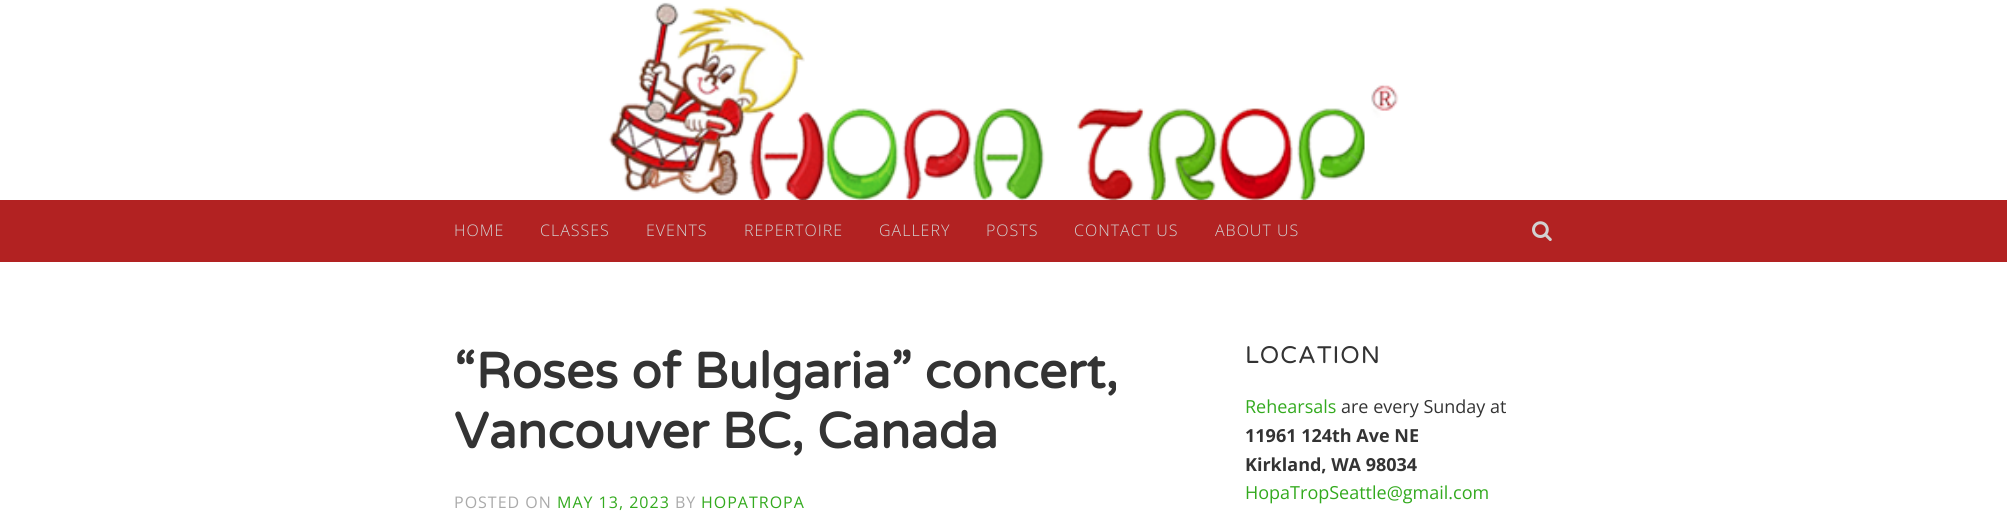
#include <cairo.h>
#include <math.h>
#include <stddef.h>


static void spaced_text(cairo_t *cr, double x, double y, const char *s, double letter, double word) {
    cairo_move_to(cr, x, y);
    while (*s) {
        char ch[5] = {0};
        int n = 0;
        do ch[n++] = *s++; while ((*s & 0xC0) == 0x80);
        cairo_show_text(cr, ch);
        cairo_rel_move_to(cr, letter + word * (*ch == ' '), 0);
    }
}

static void picture(cairo_t *cr, const char *path, double x, double y, double w, double h) {
    cairo_surface_t *image = cairo_image_surface_create_from_png(path);
    cairo_save(cr);
    cairo_set_source_surface(cr, image, x, y);
    cairo_rectangle(cr, x, y, w, h);
    cairo_fill(cr);
    cairo_restore(cr);
    cairo_surface_destroy(image);
}

int main(void) {
    cairo_surface_t *surface = cairo_image_surface_create(CAIRO_FORMAT_RGB24, 2007, 529);
    cairo_t *cr = cairo_create(surface);
    cairo_font_options_t *options = cairo_font_options_create();
    cairo_font_options_set_hint_metrics(options, CAIRO_HINT_METRICS_OFF);
    cairo_font_options_set_hint_style(options, CAIRO_HINT_STYLE_NONE);
    cairo_set_font_options(cr, options);
    cairo_set_miter_limit(cr, 4);
    cairo_set_source_rgb(cr, 1, 1, 1);
    cairo_paint(cr);
    cairo_set_source_rgb(cr, 0.698, 0.133, 0.133);
    cairo_rectangle(cr, 0, 200, 2007, 62);
    cairo_fill(cr);
    picture(cr, "img1.png", 0, 0, 2007, 200);
    cairo_select_font_face(cr, "Open Sans Light", CAIRO_FONT_SLANT_NORMAL, CAIRO_FONT_WEIGHT_NORMAL);
    cairo_set_font_size(cr, 16);
    cairo_set_source_rgb(cr, 0.824, 0.824, 0.824);
    spaced_text(cr, 454, 236, "HOME", 1, 0);
    spaced_text(cr, 540, 236, "CLASSES", 1, 0);
    spaced_text(cr, 646, 236, "EVENTS", 1, 0);
    spaced_text(cr, 744, 236, "REPERTOIRE", 1, 0);
    spaced_text(cr, 879, 236, "GALLERY", 1, 0);
    spaced_text(cr, 986, 236, "POSTS", 1, 0);
    spaced_text(cr, 1074, 236, "CONTACT US", 1, 0);
    spaced_text(cr, 1215, 236, "ABOUT US", 1, 0);
    picture(cr, "img2.png", 1532, 221, 20, 20);
    cairo_select_font_face(cr, "Varela Round", CAIRO_FONT_SLANT_NORMAL, CAIRO_FONT_WEIGHT_BOLD);
    cairo_set_font_size(cr, 50);
    cairo_set_source_rgb(cr, 0.2, 0.2, 0.2);
    cairo_move_to(cr, 454, 388);
    cairo_show_text(cr, "“Roses of Bulgaria” concert,");
    cairo_move_to(cr, 454, 448);
    cairo_show_text(cr, "Vancouver BC, Canada");
    cairo_select_font_face(cr, "Open Sans", CAIRO_FONT_SLANT_NORMAL, CAIRO_FONT_WEIGHT_NORMAL);
    cairo_set_font_size(cr, 16);
    cairo_set_source_rgb(cr, 0.667, 0.667, 0.667);
    spaced_text(cr, 454, 508, "POSTED ON", 1, 0);
    cairo_set_source_rgb(cr, 0.2, 0.667, 0.118);
    spaced_text(cr, 557, 508, "MAY 13, 2023", 1, 0);
    cairo_set_source_rgb(cr, 0.667, 0.667, 0.667);
    spaced_text(cr, 675, 508, "BY", 1, 0);
    cairo_set_source_rgb(cr, 0.2, 0.667, 0.118);
    spaced_text(cr, 701, 508, "HOPATROPA", 1, 0);
    cairo_select_font_face(cr, "Varela Round", CAIRO_FONT_SLANT_NORMAL, CAIRO_FONT_WEIGHT_NORMAL);
    cairo_set_font_size(cr, 24);
    cairo_set_source_rgb(cr, 0.2, 0.2, 0.2);
    spaced_text(cr, 1245, 363, "LOCATION", 1, 0);
    cairo_select_font_face(cr, "Open Sans", CAIRO_FONT_SLANT_NORMAL, CAIRO_FONT_WEIGHT_NORMAL);
    cairo_set_font_size(cr, 18);
    cairo_set_source_rgb(cr, 0.2, 0.667, 0.118);
    cairo_move_to(cr, 1245, 413);
    cairo_show_text(cr, "Rehearsals");
    cairo_set_source_rgb(cr, 0.2, 0.2, 0.2);
    cairo_move_to(cr, 1341, 413);
    cairo_show_text(cr, "are every Sunday at");
    cairo_select_font_face(cr, "Open Sans", CAIRO_FONT_SLANT_NORMAL, CAIRO_FONT_WEIGHT_BOLD);
    cairo_move_to(cr, 1245, 442);
    cairo_show_text(cr, "11961 124th Ave NE");
    cairo_move_to(cr, 1245, 471);
    cairo_show_text(cr, "Kirkland, WA 98034");
    cairo_select_font_face(cr, "Open Sans", CAIRO_FONT_SLANT_NORMAL, CAIRO_FONT_WEIGHT_NORMAL);
    cairo_set_source_rgb(cr, 0.2, 0.667, 0.118);
    cairo_move_to(cr, 1245, 499);
    cairo_show_text(cr, "HopaTropSeattle@gmail.com");
    cairo_surface_write_to_png(surface, "page.png");
    cairo_font_options_destroy(options);
    cairo_destroy(cr);
    cairo_surface_destroy(surface);
    return 0;
}
